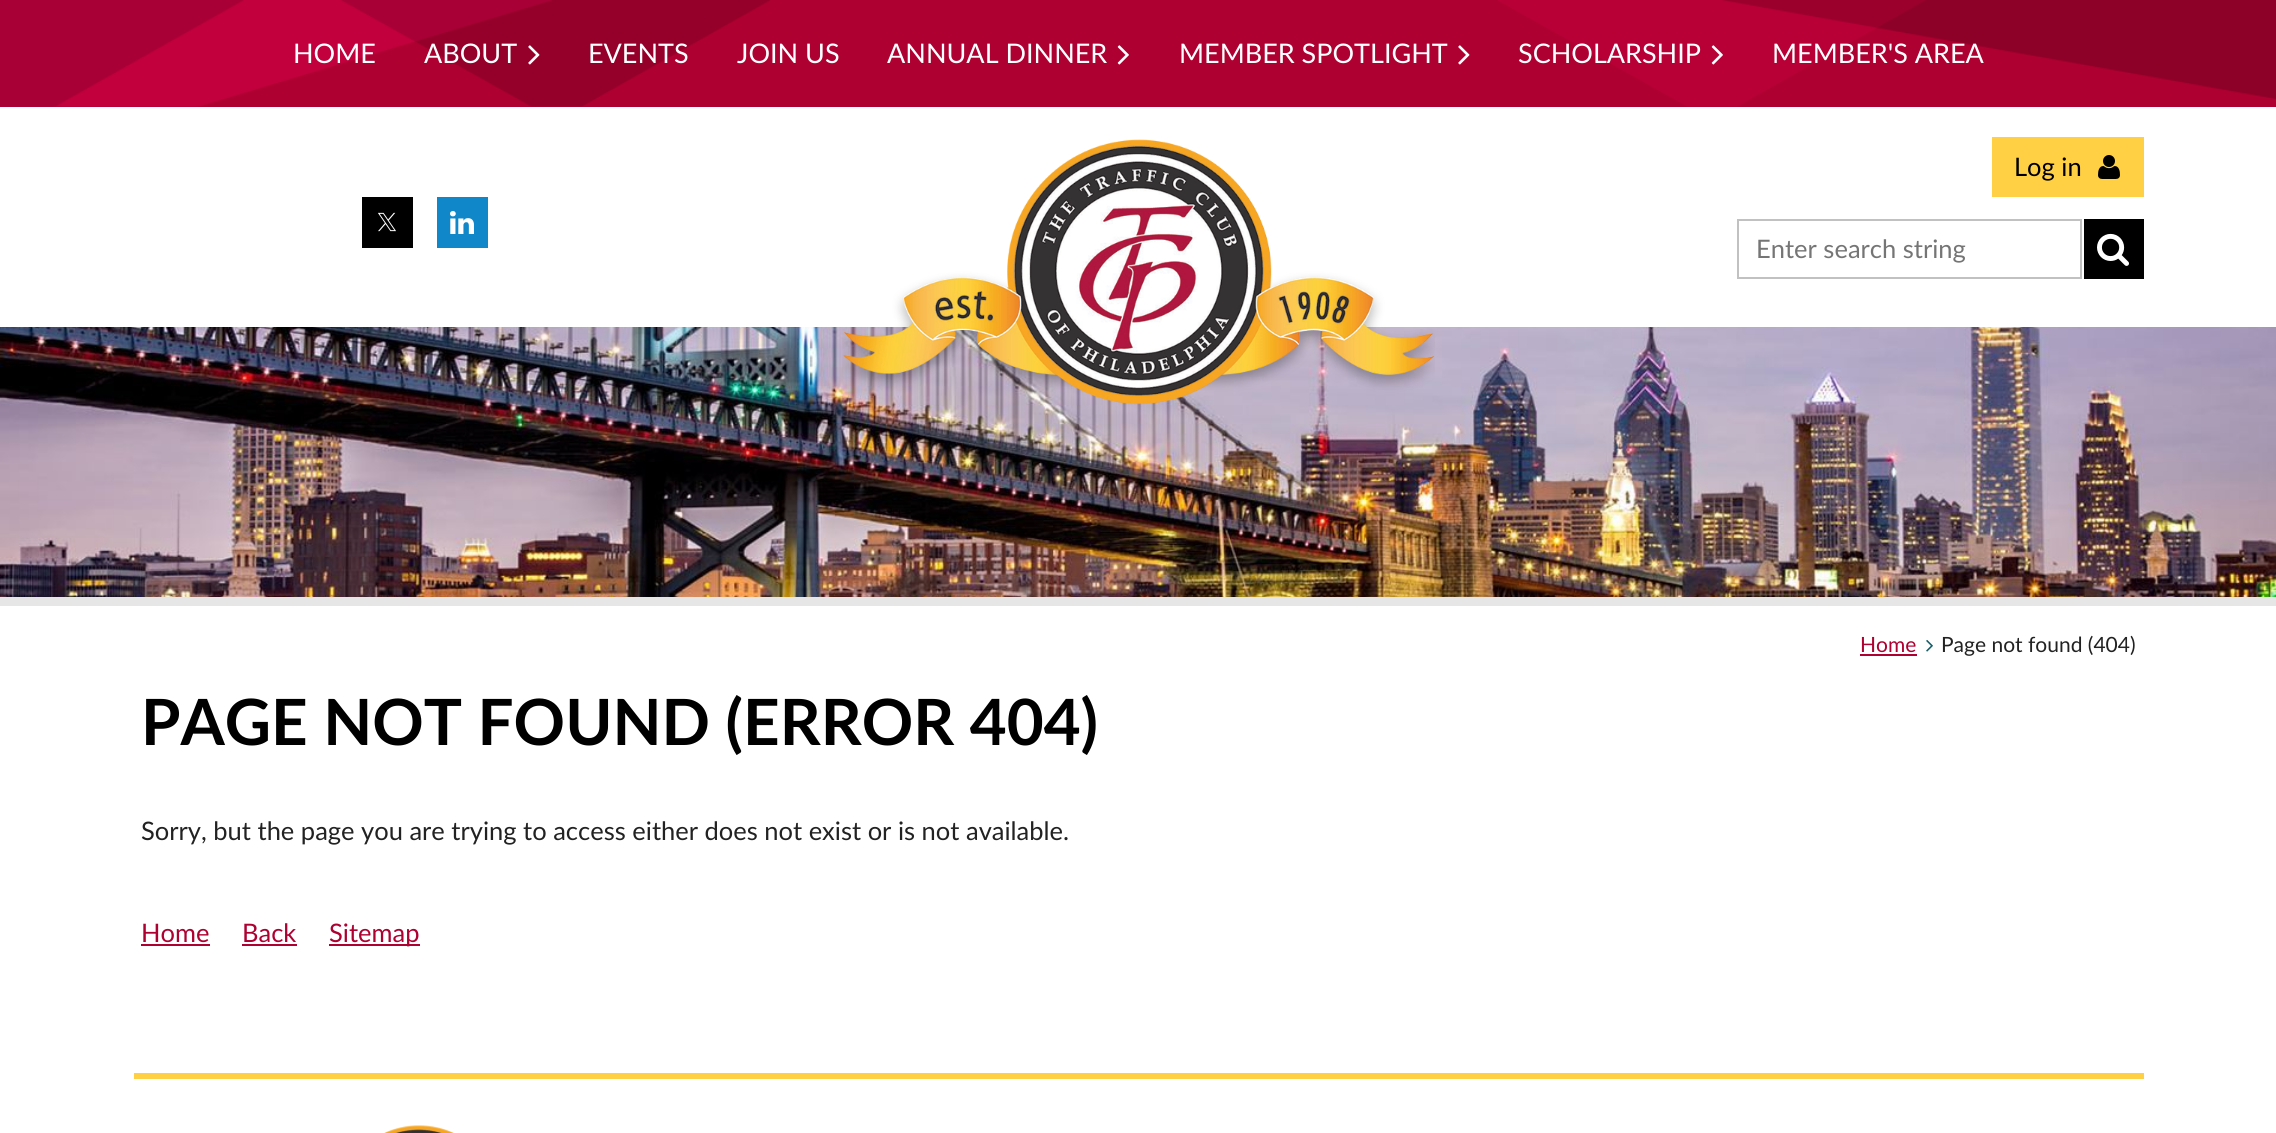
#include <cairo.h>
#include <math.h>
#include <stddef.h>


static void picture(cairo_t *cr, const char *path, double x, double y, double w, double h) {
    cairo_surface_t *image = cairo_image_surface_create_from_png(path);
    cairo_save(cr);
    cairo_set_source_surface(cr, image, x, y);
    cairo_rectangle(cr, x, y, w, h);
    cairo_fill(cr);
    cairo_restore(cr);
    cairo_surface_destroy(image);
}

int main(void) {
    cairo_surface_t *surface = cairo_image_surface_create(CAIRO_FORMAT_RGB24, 2276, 1133);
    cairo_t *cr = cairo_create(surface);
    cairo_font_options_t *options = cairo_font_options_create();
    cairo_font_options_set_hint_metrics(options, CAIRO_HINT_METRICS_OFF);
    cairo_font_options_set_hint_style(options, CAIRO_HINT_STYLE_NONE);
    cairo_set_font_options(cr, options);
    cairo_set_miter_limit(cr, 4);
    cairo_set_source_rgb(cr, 1, 1, 1);
    cairo_paint(cr);
    cairo_set_source_rgb(cr, 0.682, 0, 0.192);
    cairo_rectangle(cr, 0, 106, 2276, 1);
    cairo_fill(cr);
    picture(cr, "img1.png", 0, 0, 2276, 107);
    cairo_select_font_face(cr, "Lato", CAIRO_FONT_SLANT_NORMAL, CAIRO_FONT_WEIGHT_NORMAL);
    cairo_set_font_size(cr, 27);
    cairo_set_source_rgb(cr, 1, 1, 1);
    cairo_move_to(cr, 293, 63);
    cairo_show_text(cr, "HOME");
    cairo_move_to(cr, 424, 63);
    cairo_show_text(cr, "ABOUT");
    picture(cr, "img2.png", 528, 45, 12, 20);
    cairo_move_to(cr, 588, 63);
    cairo_show_text(cr, "EVENTS");
    cairo_move_to(cr, 737, 63);
    cairo_show_text(cr, "JOIN US");
    cairo_move_to(cr, 887, 63);
    cairo_show_text(cr, "ANNUAL DINNER");
    picture(cr, "img3.png", 1117, 45, 12, 20);
    cairo_move_to(cr, 1179, 63);
    cairo_show_text(cr, "MEMBER SPOTLIGHT");
    picture(cr, "img4.png", 1458, 45, 12, 20);
    cairo_move_to(cr, 1518, 63);
    cairo_show_text(cr, "SCHOLARSHIP");
    picture(cr, "img5.png", 1711, 45, 12, 20);
    cairo_move_to(cr, 1772, 63);
    cairo_show_text(cr, "MEMBER'S AREA");
    cairo_set_source_rgb(cr, 0, 0, 0);
    cairo_rectangle(cr, 362, 197, 51, 51);
    cairo_fill(cr);
    picture(cr, "img6.png", 378, 212, 18, 20);
    cairo_set_source_rgb(cr, 0.063, 0.529, 0.788);
    cairo_rectangle(cr, 437, 197, 51, 51);
    cairo_fill(cr);
    picture(cr, "img7.png", 450, 211, 24, 23);
    picture(cr, "img11.png", 0, 327, 2276, 270);
    picture(cr, "img8.png", 842, 139, 593, 266);
    cairo_set_source_rgb(cr, 1, 0.816, 0.263);
    cairo_rectangle(cr, 1992, 137, 152, 60);
    cairo_fill(cr);
    cairo_set_font_size(cr, 25.5);
    cairo_set_source_rgb(cr, 0, 0, 0);
    cairo_move_to(cr, 2014, 176);
    cairo_show_text(cr, "Log in");
    picture(cr, "img9.png", 2098, 155, 22, 24);
    cairo_rectangle(cr, 1738, 220, 343, 58);
    cairo_set_source_rgb(cr, 0.757, 0.757, 0.757);
    cairo_stroke(cr);
    cairo_set_source_rgb(cr, 0.459, 0.459, 0.459);
    cairo_move_to(cr, 1756, 258);
    cairo_show_text(cr, "Enter search string");
    cairo_set_source_rgb(cr, 0, 0, 0);
    cairo_rectangle(cr, 2084, 219, 60, 60);
    cairo_fill(cr);
    picture(cr, "img10.png", 2097, 233, 32, 33);
    cairo_set_source_rgb(cr, 0.902, 0.902, 0.902);
    cairo_rectangle(cr, 0, 597, 2276, 9);
    cairo_fill(cr);
    cairo_set_font_size(cr, 21);
    cairo_set_source_rgb(cr, 0.682, 0, 0.192);
    cairo_move_to(cr, 1860, 652);
    cairo_show_text(cr, "Home");
    cairo_rectangle(cr, 1860, 654, 57, 2);
    cairo_fill(cr);
    picture(cr, "img12.png", 1926, 640, 7, 12);
    cairo_set_source_rgb(cr, 0.133, 0.133, 0.133);
    cairo_move_to(cr, 1941, 652);
    cairo_show_text(cr, "Page not found (404)");
    cairo_select_font_face(cr, "Lato", CAIRO_FONT_SLANT_NORMAL, CAIRO_FONT_WEIGHT_BOLD);
    cairo_set_font_size(cr, 63.75);
    cairo_set_source_rgb(cr, 0, 0, 0);
    cairo_move_to(cr, 141, 745);
    cairo_show_text(cr, "PAGE NOT FOUND (ERROR 404)");
    cairo_select_font_face(cr, "Lato", CAIRO_FONT_SLANT_NORMAL, CAIRO_FONT_WEIGHT_NORMAL);
    cairo_set_font_size(cr, 25.5);
    cairo_set_source_rgb(cr, 0.133, 0.133, 0.133);
    cairo_move_to(cr, 141, 840);
    cairo_show_text(cr, "Sorry, but the page you are trying to access either does not exist or is not available.");
    cairo_set_source_rgb(cr, 0.682, 0, 0.192);
    cairo_move_to(cr, 141, 942);
    cairo_show_text(cr, "Home");
    cairo_rectangle(cr, 141, 944, 69, 2);
    cairo_fill(cr);
    cairo_move_to(cr, 242, 942);
    cairo_show_text(cr, "Back");
    cairo_rectangle(cr, 242, 944, 55, 2);
    cairo_fill(cr);
    cairo_rectangle(cr, 329, 944, 91, 2);
    cairo_fill(cr);
    cairo_move_to(cr, 329, 942);
    cairo_show_text(cr, "Sitemap");
    cairo_set_source_rgb(cr, 1, 0.816, 0.263);
    cairo_rectangle(cr, 134, 1073, 2010, 6);
    cairo_fill(cr);
    picture(cr, "img13.png", 384, 1125, 70, 8);
    cairo_surface_write_to_png(surface, "page.png");
    cairo_font_options_destroy(options);
    cairo_destroy(cr);
    cairo_surface_destroy(surface);
    return 0;
}
